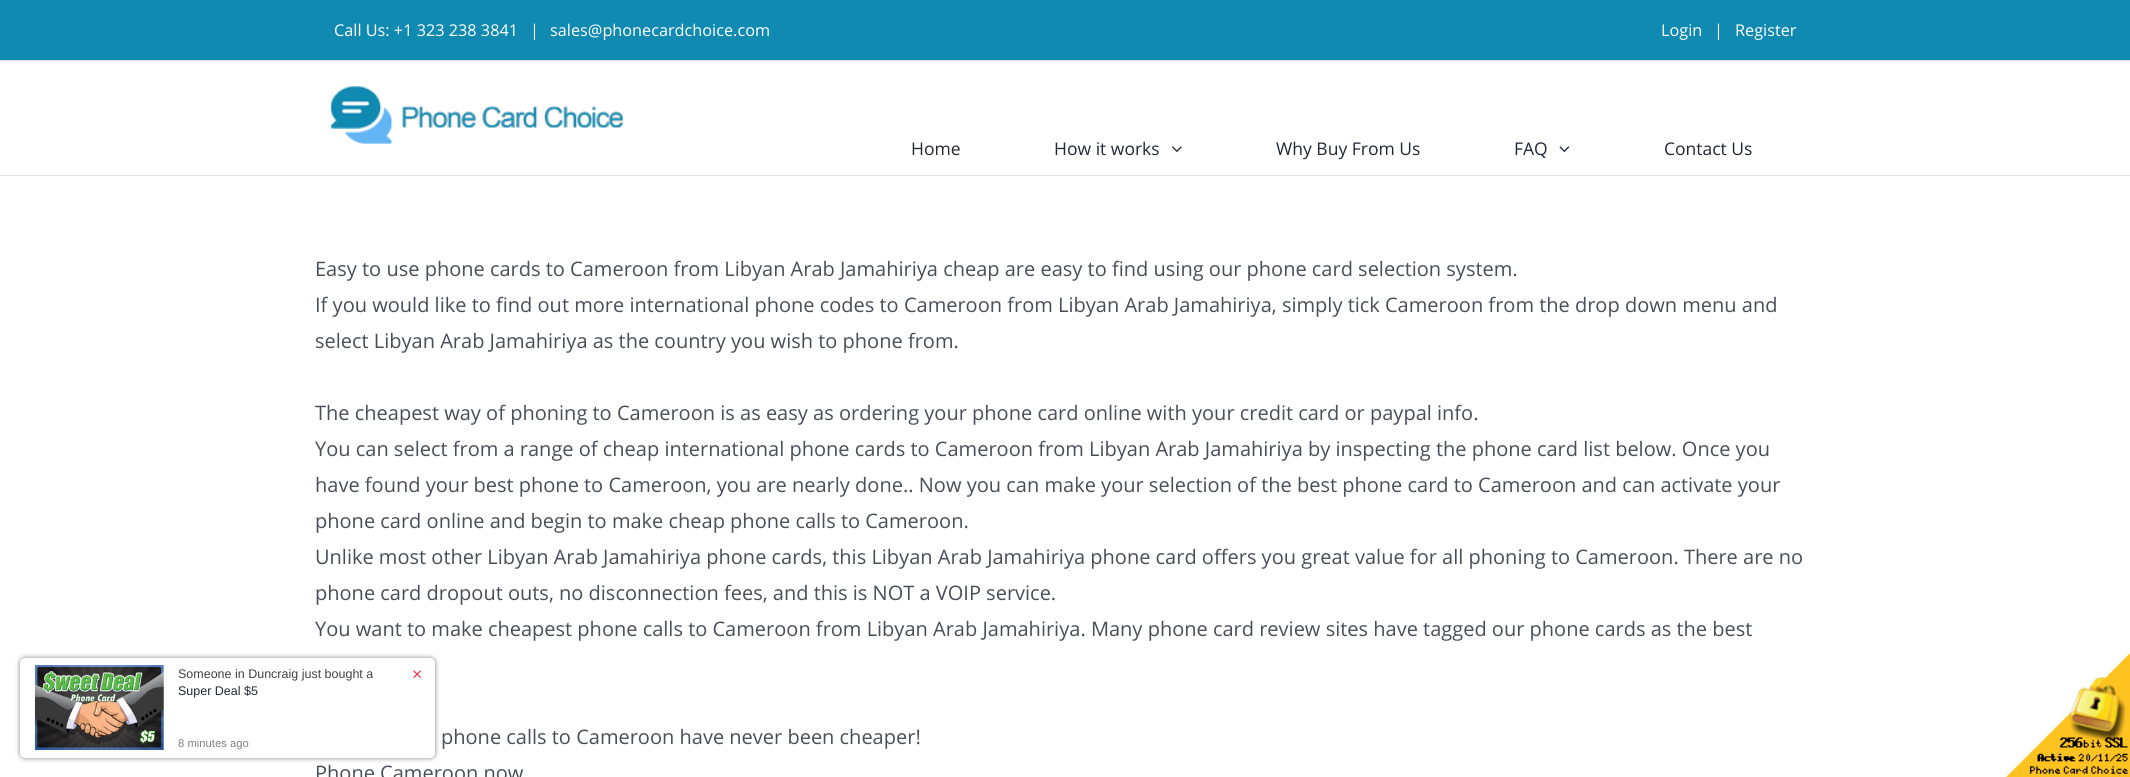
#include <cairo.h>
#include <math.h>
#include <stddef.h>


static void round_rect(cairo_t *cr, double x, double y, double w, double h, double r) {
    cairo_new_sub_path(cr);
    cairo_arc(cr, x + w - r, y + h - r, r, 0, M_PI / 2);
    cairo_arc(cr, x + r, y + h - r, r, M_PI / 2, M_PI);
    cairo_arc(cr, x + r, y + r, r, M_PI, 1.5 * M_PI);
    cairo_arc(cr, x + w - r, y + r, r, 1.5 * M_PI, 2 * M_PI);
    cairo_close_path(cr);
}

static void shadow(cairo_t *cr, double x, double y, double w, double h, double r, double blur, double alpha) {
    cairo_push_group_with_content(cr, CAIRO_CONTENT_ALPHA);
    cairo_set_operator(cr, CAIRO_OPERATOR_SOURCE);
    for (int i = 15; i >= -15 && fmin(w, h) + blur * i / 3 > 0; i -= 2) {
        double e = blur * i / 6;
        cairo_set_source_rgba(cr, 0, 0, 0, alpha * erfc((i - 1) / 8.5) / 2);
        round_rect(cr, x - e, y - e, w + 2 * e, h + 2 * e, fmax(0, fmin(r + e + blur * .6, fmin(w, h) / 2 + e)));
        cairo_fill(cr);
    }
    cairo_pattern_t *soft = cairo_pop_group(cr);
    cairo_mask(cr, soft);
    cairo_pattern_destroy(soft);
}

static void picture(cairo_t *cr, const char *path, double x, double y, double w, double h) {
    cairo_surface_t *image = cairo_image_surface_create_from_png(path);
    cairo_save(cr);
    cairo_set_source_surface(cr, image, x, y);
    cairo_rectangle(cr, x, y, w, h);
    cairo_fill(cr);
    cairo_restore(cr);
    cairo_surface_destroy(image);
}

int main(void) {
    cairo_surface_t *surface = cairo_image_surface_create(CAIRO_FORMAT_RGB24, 2130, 777);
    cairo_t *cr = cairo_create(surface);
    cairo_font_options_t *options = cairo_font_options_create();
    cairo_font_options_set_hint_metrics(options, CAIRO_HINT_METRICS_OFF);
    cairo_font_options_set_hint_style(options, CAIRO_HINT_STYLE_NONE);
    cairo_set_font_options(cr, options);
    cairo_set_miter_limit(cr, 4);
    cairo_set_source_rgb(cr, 1, 1, 1);
    cairo_paint(cr);
    cairo_set_source_rgb(cr, 0, 0, 0);
    shadow(cr, 20, 658, 415, 100, 5, 2.5, 0.5);
    cairo_set_source_rgb(cr, 1, 1, 1);
    round_rect(cr, 20, 658, 415, 100, 5);
    cairo_fill(cr);
    picture(cr, "img1.png", 34, 665, 130, 85);
    cairo_select_font_face(cr, "Liberation Sans", CAIRO_FONT_SLANT_NORMAL, CAIRO_FONT_WEIGHT_NORMAL);
    cairo_set_font_size(cr, 12.5);
    cairo_set_source_rgb(cr, 0.255, 0.251, 0.259);
    cairo_move_to(cr, 178, 678);
    cairo_show_text(cr, "Someone in Duncraig just bought a");
    cairo_set_source_rgb(cr, 0.129, 0.161, 0.204);
    cairo_move_to(cr, 178, 695);
    cairo_show_text(cr, "Super Deal $5");
    cairo_set_font_size(cr, 17.5);
    cairo_set_source_rgb(cr, 0.91, 0.212, 0.314);
    cairo_move_to(cr, 412, 680);
    cairo_show_text(cr, "×");
    cairo_set_font_size(cr, 11.25);
    cairo_set_source_rgb(cr, 0.502, 0.502, 0.502);
    cairo_move_to(cr, 178, 747);
    cairo_show_text(cr, "8 minutes ago");
    cairo_set_source_rgb(cr, 0.067, 0.541, 0.698);
    cairo_rectangle(cr, 0, 0, 2130, 60);
    cairo_fill(cr);
    cairo_set_source_rgb(cr, 0.886, 0.886, 0.886);
    cairo_rectangle(cr, 0, 60, 2130, 1);
    cairo_fill(cr);
    cairo_select_font_face(cr, "Open Sans", CAIRO_FONT_SLANT_NORMAL, CAIRO_FONT_WEIGHT_NORMAL);
    cairo_set_font_size(cr, 16.25);
    cairo_set_source_rgb(cr, 1, 1, 1);
    cairo_move_to(cr, 334, 36);
    cairo_show_text(cr, "Call Us: +1 323 238 3841");
    cairo_move_to(cr, 530, 36);
    cairo_show_text(cr, "|");
    cairo_move_to(cr, 550, 36);
    cairo_show_text(cr, "sales@phonecardchoice.com");
    cairo_move_to(cr, 1661, 36);
    cairo_show_text(cr, "Login");
    cairo_move_to(cr, 1714, 36);
    cairo_show_text(cr, "|");
    cairo_move_to(cr, 1735, 36);
    cairo_show_text(cr, "Register");
    cairo_set_source_rgb(cr, 0.886, 0.886, 0.886);
    cairo_rectangle(cr, 0, 175, 2130, 1);
    cairo_fill(cr);
    picture(cr, "img2.png", 330, 86, 294, 58);
    cairo_set_font_size(cr, 17.5);
    cairo_set_source_rgb(cr, 0.129, 0.161, 0.204);
    cairo_move_to(cr, 911, 155);
    cairo_show_text(cr, "Home");
    cairo_move_to(cr, 1054, 155);
    cairo_show_text(cr, "How it works");
    picture(cr, "img3.png", 1172, 146, 10, 6);
    cairo_move_to(cr, 1276, 155);
    cairo_show_text(cr, "Why Buy From Us");
    cairo_move_to(cr, 1514, 155);
    cairo_show_text(cr, "FAQ");
    picture(cr, "img4.png", 1559, 146, 11, 6);
    cairo_move_to(cr, 1664, 155);
    cairo_show_text(cr, "Contact Us");
    cairo_set_font_size(cr, 20);
    cairo_set_source_rgb(cr, 0.29, 0.306, 0.341);
    cairo_move_to(cr, 315, 276);
    cairo_show_text(cr, "Easy to use phone cards to Cameroon from Libyan Arab Jamahiriya cheap are easy to find using our phone card selection system.");
    cairo_move_to(cr, 315, 312);
    cairo_show_text(cr, "If you would like to find out more international phone codes to Cameroon from Libyan Arab Jamahiriya, simply tick Cameroon from the drop down menu and");
    cairo_move_to(cr, 315, 348);
    cairo_show_text(cr, "select Libyan Arab Jamahiriya as the country you wish to phone from.");
    cairo_move_to(cr, 315, 420);
    cairo_show_text(cr, "The cheapest way of phoning to Cameroon is as easy as ordering your phone card online with your credit card or paypal info.");
    cairo_move_to(cr, 315, 456);
    cairo_show_text(cr, "You can select from a range of cheap international phone cards to Cameroon from Libyan Arab Jamahiriya by inspecting the phone card list below. Once you");
    cairo_move_to(cr, 315, 492);
    cairo_show_text(cr, "have found your best phone to Cameroon, you are nearly done.. Now you can make your selection of the best phone card to Cameroon and can activate your");
    cairo_move_to(cr, 315, 528);
    cairo_show_text(cr, "phone card online and begin to make cheap phone calls to Cameroon.");
    cairo_move_to(cr, 315, 564);
    cairo_show_text(cr, "Unlike most other Libyan Arab Jamahiriya phone cards, this Libyan Arab Jamahiriya phone card offers you great value for all phoning to Cameroon. There are no");
    cairo_move_to(cr, 315, 600);
    cairo_show_text(cr, "phone card dropout outs, no disconnection fees, and this is NOT a VOIP service.");
    cairo_move_to(cr, 315, 636);
    cairo_show_text(cr, "You want to make cheapest phone calls to Cameroon from Libyan Arab Jamahiriya. Many phone card review sites have tagged our phone cards as the best");
    cairo_move_to(cr, 441, 744);
    cairo_show_text(cr, "phone calls to Cameroon have never been cheaper!");
    cairo_move_to(cr, 315, 780);
    cairo_show_text(cr, "Phone Cameroon now");
    picture(cr, "img5.png", 2006, 653, 124, 124);
    cairo_surface_write_to_png(surface, "page.png");
    cairo_font_options_destroy(options);
    cairo_destroy(cr);
    cairo_surface_destroy(surface);
    return 0;
}
